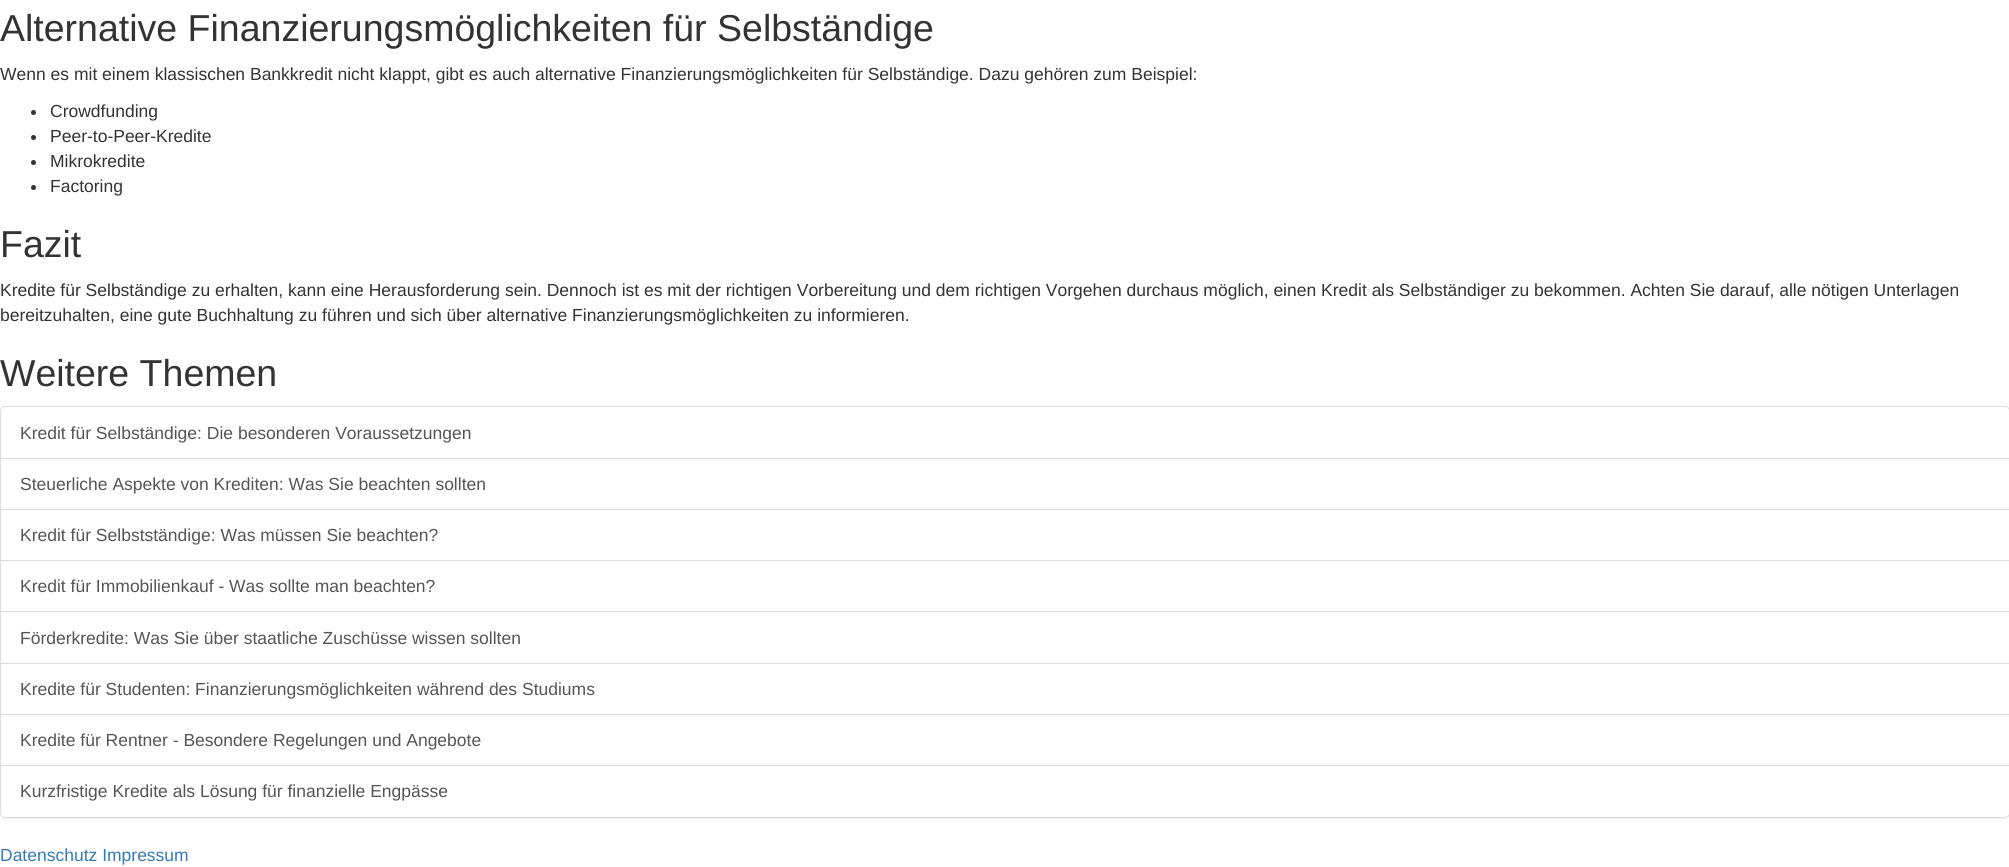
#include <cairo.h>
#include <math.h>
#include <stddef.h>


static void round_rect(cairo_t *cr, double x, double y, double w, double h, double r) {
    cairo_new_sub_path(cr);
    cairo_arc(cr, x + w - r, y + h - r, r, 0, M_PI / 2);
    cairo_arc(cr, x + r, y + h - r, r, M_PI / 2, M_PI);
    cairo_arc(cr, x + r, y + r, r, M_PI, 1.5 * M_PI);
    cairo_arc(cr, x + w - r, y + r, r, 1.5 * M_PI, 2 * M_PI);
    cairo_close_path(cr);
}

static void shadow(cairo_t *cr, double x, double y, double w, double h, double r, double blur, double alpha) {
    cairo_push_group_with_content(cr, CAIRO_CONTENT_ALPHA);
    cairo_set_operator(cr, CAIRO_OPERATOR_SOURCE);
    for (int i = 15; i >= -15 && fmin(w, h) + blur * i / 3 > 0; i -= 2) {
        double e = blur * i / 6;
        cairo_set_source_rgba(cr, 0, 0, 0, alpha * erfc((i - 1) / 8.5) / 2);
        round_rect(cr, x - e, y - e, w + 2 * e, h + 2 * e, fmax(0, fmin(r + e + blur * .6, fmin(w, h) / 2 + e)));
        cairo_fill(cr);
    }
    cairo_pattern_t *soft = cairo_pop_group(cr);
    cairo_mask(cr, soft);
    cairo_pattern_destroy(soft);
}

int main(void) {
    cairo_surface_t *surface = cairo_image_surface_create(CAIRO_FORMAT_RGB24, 2009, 867);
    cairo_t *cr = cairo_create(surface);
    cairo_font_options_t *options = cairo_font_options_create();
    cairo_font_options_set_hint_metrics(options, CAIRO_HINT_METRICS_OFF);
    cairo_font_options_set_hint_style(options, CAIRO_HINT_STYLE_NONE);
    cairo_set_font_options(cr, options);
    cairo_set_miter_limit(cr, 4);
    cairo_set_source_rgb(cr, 1, 1, 1);
    cairo_paint(cr);
    cairo_select_font_face(cr, "Liberation Sans", CAIRO_FONT_SLANT_NORMAL, CAIRO_FONT_WEIGHT_NORMAL);
    cairo_set_font_size(cr, 37.5);
    cairo_set_source_rgb(cr, 0.2, 0.2, 0.2);
    cairo_move_to(cr, 0, 41);
    cairo_show_text(cr, "Alternative Finanzierungsmöglichkeiten für Selbständige");
    cairo_set_font_size(cr, 17.5);
    cairo_move_to(cr, 0, 80);
    cairo_show_text(cr, "Wenn es mit einem klassischen Bankkredit nicht klappt, gibt es auch alternative Finanzierungsmöglichkeiten für Selbständige. Dazu gehören zum Beispiel:");
    cairo_new_path(cr);
    cairo_arc(cr, 33.5, 112.5, 2.5, 0, 2 * M_PI);
    cairo_fill(cr);
    cairo_move_to(cr, 50, 117);
    cairo_show_text(cr, "Crowdfunding");
    cairo_new_path(cr);
    cairo_arc(cr, 33.5, 137.5, 2.5, 0, 2 * M_PI);
    cairo_fill(cr);
    cairo_move_to(cr, 50, 142);
    cairo_show_text(cr, "Peer-to-Peer-Kredite");
    cairo_new_path(cr);
    cairo_arc(cr, 33.5, 162.5, 2.5, 0, 2 * M_PI);
    cairo_fill(cr);
    cairo_move_to(cr, 50, 167);
    cairo_show_text(cr, "Mikrokredite");
    cairo_new_path(cr);
    cairo_arc(cr, 33.5, 187.5, 2.5, 0, 2 * M_PI);
    cairo_fill(cr);
    cairo_move_to(cr, 50, 192);
    cairo_show_text(cr, "Factoring");
    cairo_set_font_size(cr, 37.5);
    cairo_move_to(cr, 0, 257);
    cairo_show_text(cr, "Fazit");
    cairo_set_font_size(cr, 17.5);
    cairo_move_to(cr, 0, 296);
    cairo_show_text(cr, "Kredite für Selbständige zu erhalten, kann eine Herausforderung sein. Dennoch ist es mit der richtigen Vorbereitung und dem richtigen Vorgehen durchaus möglich, einen Kredit als Selbständiger zu bekommen. Achten Sie darauf, alle nötigen Unterlagen");
    cairo_move_to(cr, 0, 321);
    cairo_show_text(cr, "bereitzuhalten, eine gute Buchhaltung zu führen und sich über alternative Finanzierungsmöglichkeiten zu informieren.");
    cairo_set_font_size(cr, 37.5);
    cairo_move_to(cr, 0, 386);
    cairo_show_text(cr, "Weitere Themen");
    cairo_save(cr);
    cairo_set_fill_rule(cr, CAIRO_FILL_RULE_EVEN_ODD);
    cairo_new_path(cr);
    cairo_move_to(cr, 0, 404);
    cairo_line_to(cr, 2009, 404);
    cairo_line_to(cr, 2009, 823);
    cairo_line_to(cr, 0, 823);
    cairo_close_path(cr);
    cairo_move_to(cr, 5, 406);
    cairo_line_to(cr, 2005, 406);
    cairo_curve_to(cr, 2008, 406, 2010, 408, 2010, 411);
    cairo_line_to(cr, 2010, 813);
    cairo_curve_to(cr, 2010, 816, 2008, 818, 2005, 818);
    cairo_line_to(cr, 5, 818);
    cairo_curve_to(cr, 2, 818, 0, 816, 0, 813);
    cairo_line_to(cr, 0, 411);
    cairo_curve_to(cr, 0, 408, 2, 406, 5, 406);
    cairo_close_path(cr);
    cairo_clip(cr);
    cairo_set_source_rgb(cr, 0, 0, 0);
    shadow(cr, 0, 408, 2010, 411, 5, 1, 0.07);
    cairo_restore(cr);
    cairo_new_path(cr);
    cairo_move_to(cr, 5, 406.5);
    cairo_line_to(cr, 2005, 406.5);
    cairo_curve_to(cr, 2007.5, 406.5, 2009.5, 408.5, 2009.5, 411);
    cairo_line_to(cr, 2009.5, 458.5);
    cairo_line_to(cr, 0.5, 458.5);
    cairo_line_to(cr, 0.5, 411);
    cairo_curve_to(cr, 0.5, 408.5, 2.5, 406.5, 5, 406.5);
    cairo_close_path(cr);
    cairo_set_source_rgb(cr, 0.867, 0.867, 0.867);
    cairo_set_line_width(cr, 1);
    cairo_stroke(cr);
    cairo_set_font_size(cr, 17.5);
    cairo_set_source_rgb(cr, 0.333, 0.333, 0.333);
    cairo_move_to(cr, 20, 439);
    cairo_show_text(cr, "Kredit für Selbständige: Die besonderen Voraussetzungen");
    cairo_rectangle(cr, 0.5, 458.5, 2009, 51);
    cairo_set_source_rgb(cr, 0.867, 0.867, 0.867);
    cairo_stroke(cr);
    cairo_set_source_rgb(cr, 0.333, 0.333, 0.333);
    cairo_move_to(cr, 20, 490);
    cairo_show_text(cr, "Steuerliche Aspekte von Krediten: Was Sie beachten sollten");
    cairo_rectangle(cr, 0.5, 509.5, 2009, 51);
    cairo_set_source_rgb(cr, 0.867, 0.867, 0.867);
    cairo_stroke(cr);
    cairo_set_source_rgb(cr, 0.333, 0.333, 0.333);
    cairo_move_to(cr, 20, 541);
    cairo_show_text(cr, "Kredit für Selbstständige: Was müssen Sie beachten?");
    cairo_rectangle(cr, 0.5, 560.5, 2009, 52);
    cairo_set_source_rgb(cr, 0.867, 0.867, 0.867);
    cairo_stroke(cr);
    cairo_set_source_rgb(cr, 0.333, 0.333, 0.333);
    cairo_move_to(cr, 20, 592);
    cairo_show_text(cr, "Kredit für Immobilienkauf - Was sollte man beachten?");
    cairo_set_source_rgb(cr, 1, 1, 1);
    cairo_rectangle(cr, 1, 612, 2008, 1);
    cairo_fill(cr);
    cairo_rectangle(cr, 0.5, 611.5, 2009, 52);
    cairo_set_source_rgb(cr, 0.867, 0.867, 0.867);
    cairo_stroke(cr);
    cairo_set_source_rgb(cr, 0.333, 0.333, 0.333);
    cairo_move_to(cr, 20, 644);
    cairo_show_text(cr, "Förderkredite: Was Sie über staatliche Zuschüsse wissen sollten");
    cairo_rectangle(cr, 0.5, 663.5, 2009, 51);
    cairo_set_source_rgb(cr, 0.867, 0.867, 0.867);
    cairo_stroke(cr);
    cairo_set_source_rgb(cr, 0.333, 0.333, 0.333);
    cairo_move_to(cr, 20, 695);
    cairo_show_text(cr, "Kredite für Studenten: Finanzierungsmöglichkeiten während des Studiums");
    cairo_rectangle(cr, 0.5, 714.5, 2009, 51);
    cairo_set_source_rgb(cr, 0.867, 0.867, 0.867);
    cairo_stroke(cr);
    cairo_set_source_rgb(cr, 0.333, 0.333, 0.333);
    cairo_move_to(cr, 20, 746);
    cairo_show_text(cr, "Kredite für Rentner - Besondere Regelungen und Angebote");
    cairo_set_source_rgb(cr, 1, 1, 1);
    cairo_new_path(cr);
    cairo_move_to(cr, 0.5, 765.5);
    cairo_line_to(cr, 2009.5, 765.5);
    cairo_line_to(cr, 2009.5, 813);
    cairo_curve_to(cr, 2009.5, 815.5, 2007.5, 817.5, 2005, 817.5);
    cairo_line_to(cr, 5, 817.5);
    cairo_curve_to(cr, 2.5, 817.5, 0.5, 815.5, 0.5, 813);
    cairo_close_path(cr);
    cairo_fill_preserve(cr);
    cairo_set_source_rgb(cr, 0.867, 0.867, 0.867);
    cairo_stroke(cr);
    cairo_set_source_rgb(cr, 0.333, 0.333, 0.333);
    cairo_move_to(cr, 20, 797);
    cairo_show_text(cr, "Kurzfristige Kredite als Lösung für finanzielle Engpässe");
    cairo_set_source_rgb(cr, 0.2, 0.478, 0.718);
    cairo_move_to(cr, 0, 861);
    cairo_show_text(cr, "Datenschutz Impressum");
    cairo_surface_write_to_png(surface, "page.png");
    cairo_font_options_destroy(options);
    cairo_destroy(cr);
    cairo_surface_destroy(surface);
    return 0;
}
